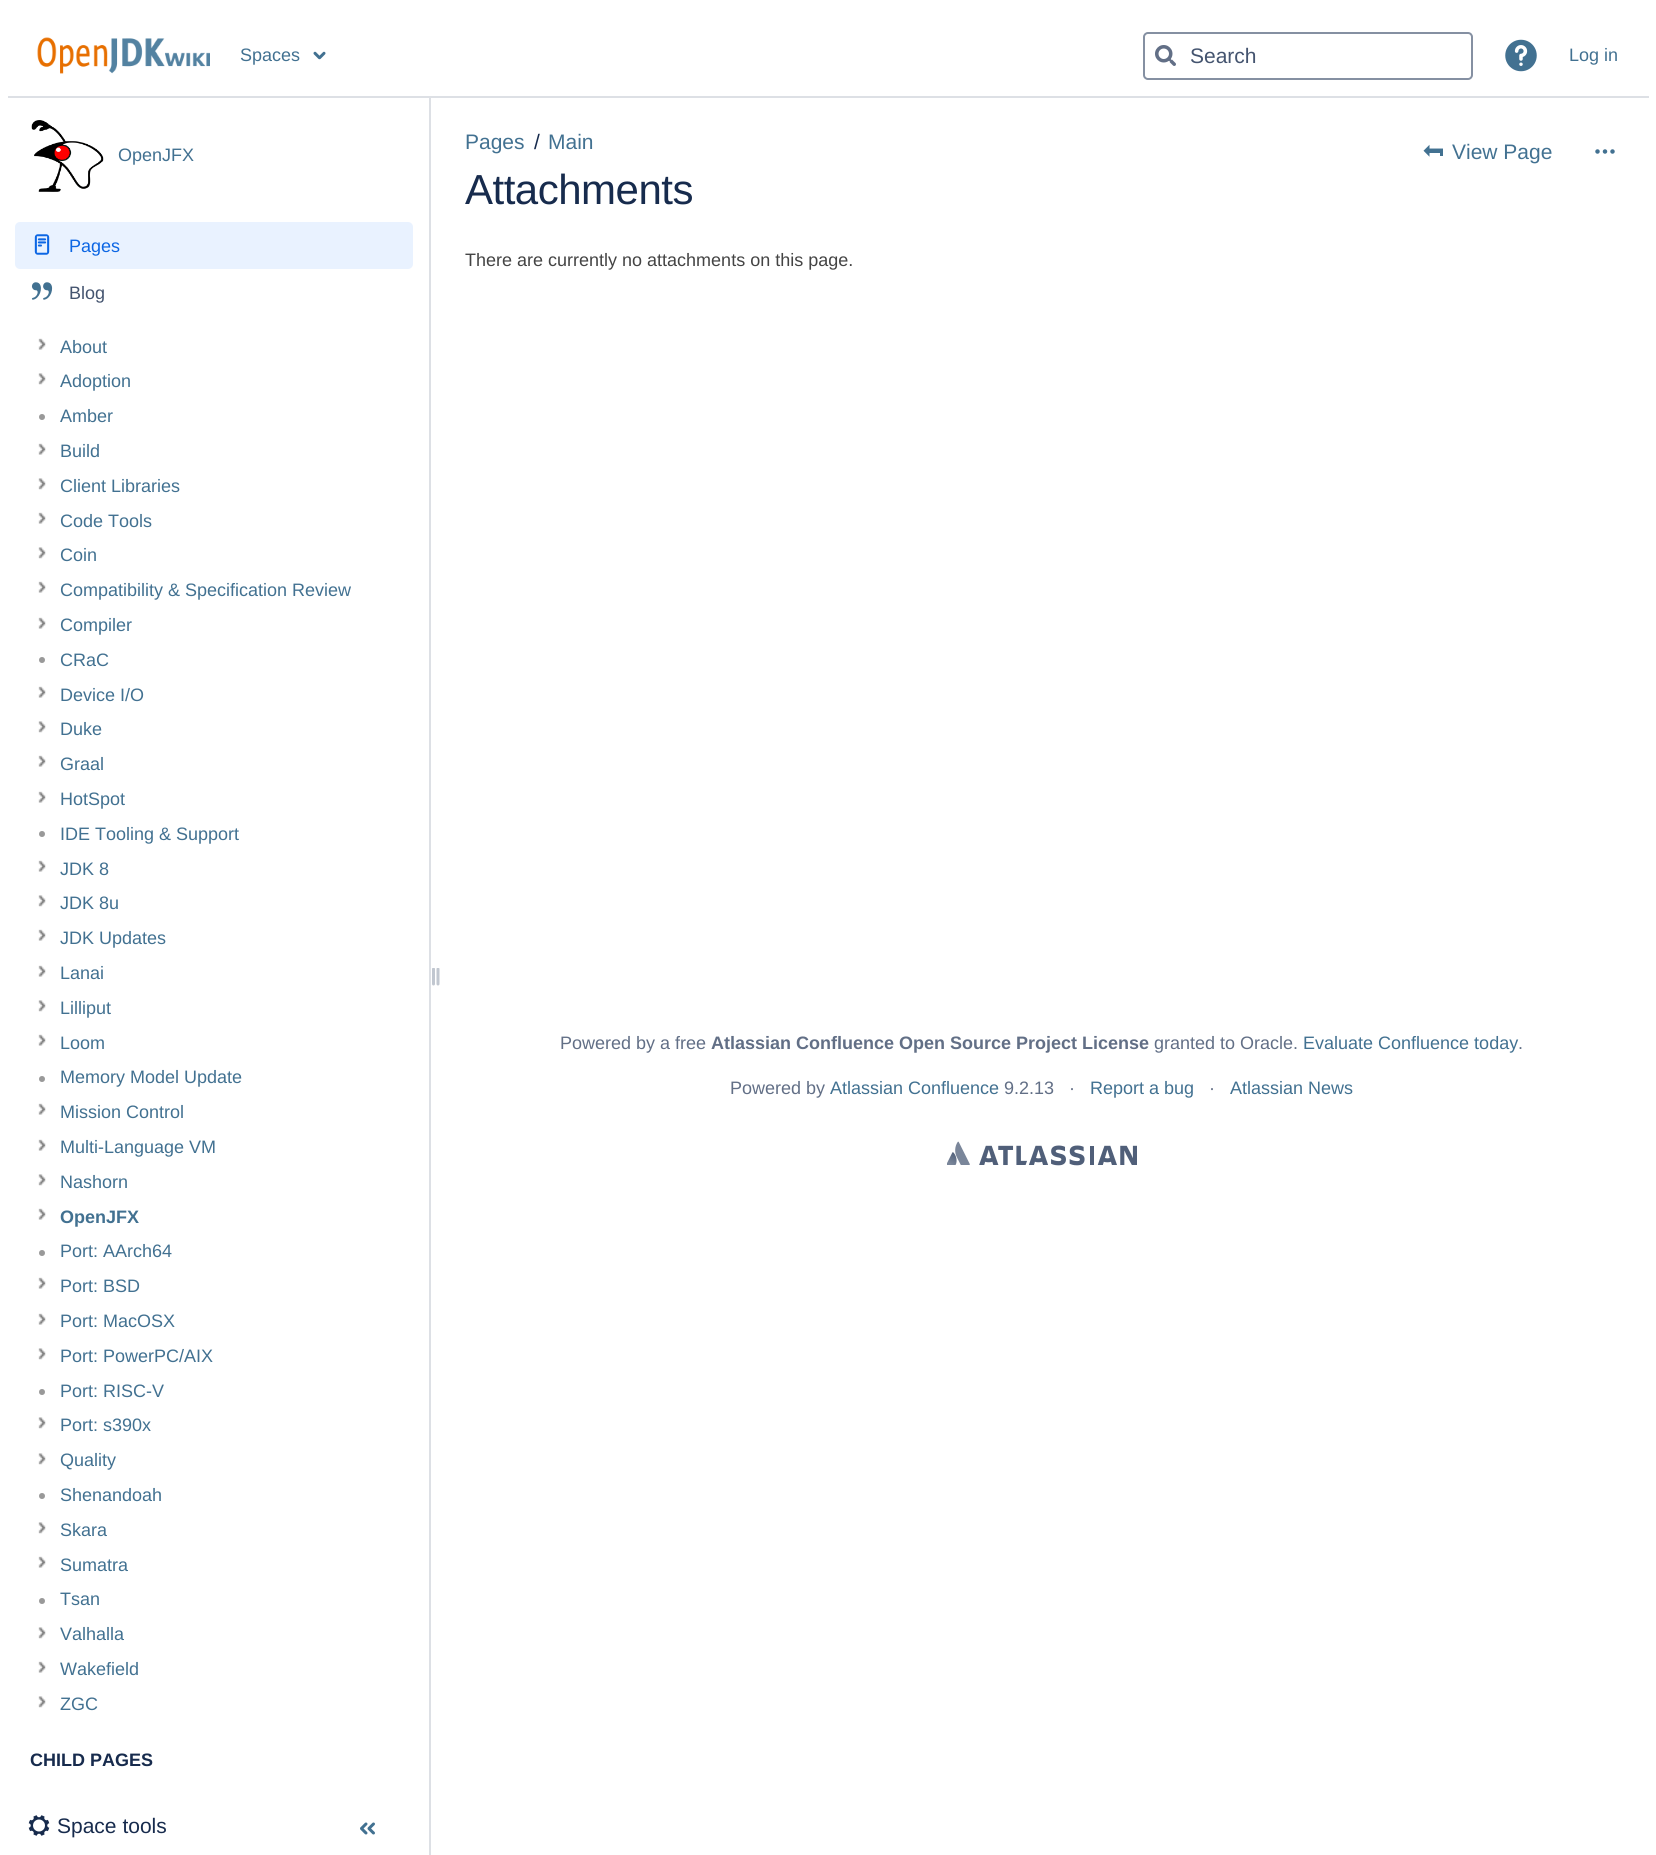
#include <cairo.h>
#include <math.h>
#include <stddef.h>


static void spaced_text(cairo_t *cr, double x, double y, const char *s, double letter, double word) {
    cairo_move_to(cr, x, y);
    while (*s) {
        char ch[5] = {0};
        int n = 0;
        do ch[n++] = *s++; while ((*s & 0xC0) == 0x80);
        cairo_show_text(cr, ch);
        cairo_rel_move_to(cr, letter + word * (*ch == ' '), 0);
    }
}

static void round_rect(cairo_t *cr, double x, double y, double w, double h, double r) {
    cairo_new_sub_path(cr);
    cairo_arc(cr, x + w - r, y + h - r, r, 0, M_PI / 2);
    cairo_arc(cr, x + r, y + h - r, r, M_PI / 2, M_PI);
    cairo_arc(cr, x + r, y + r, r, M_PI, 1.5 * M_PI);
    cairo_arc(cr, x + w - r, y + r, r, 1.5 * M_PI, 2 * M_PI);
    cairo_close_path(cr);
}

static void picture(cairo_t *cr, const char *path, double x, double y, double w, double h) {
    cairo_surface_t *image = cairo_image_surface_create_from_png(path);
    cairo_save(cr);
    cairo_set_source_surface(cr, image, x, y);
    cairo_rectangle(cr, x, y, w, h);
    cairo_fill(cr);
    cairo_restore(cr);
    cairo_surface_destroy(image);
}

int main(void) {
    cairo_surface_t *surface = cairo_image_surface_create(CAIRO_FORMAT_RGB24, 1656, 1855);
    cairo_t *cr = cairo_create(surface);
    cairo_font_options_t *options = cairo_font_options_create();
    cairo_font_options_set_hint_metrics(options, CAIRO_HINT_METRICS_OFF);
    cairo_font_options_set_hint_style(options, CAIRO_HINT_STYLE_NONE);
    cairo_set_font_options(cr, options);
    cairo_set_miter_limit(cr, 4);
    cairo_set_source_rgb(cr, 1, 1, 1);
    cairo_paint(cr);
    cairo_set_source_rgb(cr, 0.867, 0.878, 0.898);
    cairo_rectangle(cr, 8, 96, 1641, 2);
    cairo_fill(cr);
    picture(cr, "img1.png", 37, 37, 173, 37);
    cairo_select_font_face(cr, "Liberation Sans", CAIRO_FONT_SLANT_NORMAL, CAIRO_FONT_WEIGHT_NORMAL);
    cairo_set_font_size(cr, 18);
    cairo_set_source_rgb(cr, 0.259, 0.443, 0.569);
    cairo_move_to(cr, 240, 61);
    cairo_show_text(cr, "Spaces");
    picture(cr, "img2.png", 313, 51, 13, 9);
    round_rect(cr, 1144, 33, 328, 46, 4);
    cairo_set_source_rgb(cr, 0.522, 0.565, 0.635);
    cairo_stroke(cr);
    picture(cr, "img3.png", 1155, 45, 21, 21);
    cairo_set_font_size(cr, 21);
    cairo_set_source_rgb(cr, 0.267, 0.329, 0.435);
    cairo_move_to(cr, 1190, 63);
    cairo_show_text(cr, "Search");
    picture(cr, "img4.png", 1505, 39, 32, 33);
    cairo_set_font_size(cr, 18);
    cairo_set_source_rgb(cr, 0.259, 0.443, 0.569);
    cairo_move_to(cr, 1569, 61);
    cairo_show_text(cr, "Log in");
    picture(cr, "img5.png", 31, 120, 73, 72);
    cairo_move_to(cr, 118, 161);
    cairo_show_text(cr, "OpenJFX");
    cairo_set_source_rgb(cr, 0.914, 0.949, 1);
    round_rect(cr, 15, 222, 398, 47, 5);
    cairo_fill(cr);
    picture(cr, "img6.png", 34, 234, 16, 21);
    cairo_set_source_rgb(cr, 0.047, 0.4, 0.894);
    cairo_move_to(cr, 69, 252);
    cairo_show_text(cr, "Pages");
    picture(cr, "img7.png", 31, 282, 22, 18);
    cairo_set_source_rgb(cr, 0.267, 0.329, 0.435);
    cairo_move_to(cr, 69, 299);
    cairo_show_text(cr, "Blog");
    picture(cr, "img8.png", 38, 338, 8, 12);
    cairo_set_source_rgb(cr, 0.259, 0.443, 0.569);
    cairo_move_to(cr, 60, 353);
    cairo_show_text(cr, "About");
    picture(cr, "img9.png", 38, 373, 8, 12);
    cairo_move_to(cr, 60, 387);
    cairo_show_text(cr, "Adoption");
    cairo_set_source_rgb(cr, 0.6, 0.6, 0.6);
    cairo_new_path(cr);
    cairo_arc(cr, 42, 417, 3, 0, 2 * M_PI);
    cairo_fill(cr);
    cairo_set_source_rgb(cr, 0.259, 0.443, 0.569);
    cairo_move_to(cr, 60, 422);
    cairo_show_text(cr, "Amber");
    picture(cr, "img8.png", 38, 443, 8, 12);
    cairo_move_to(cr, 60, 457);
    cairo_show_text(cr, "Build");
    picture(cr, "img9.png", 38, 478, 8, 12);
    cairo_move_to(cr, 60, 492);
    cairo_show_text(cr, "Client Libraries");
    picture(cr, "img8.png", 38, 512, 8, 12);
    cairo_move_to(cr, 60, 527);
    cairo_show_text(cr, "Code Tools");
    picture(cr, "img9.png", 38, 547, 8, 12);
    cairo_move_to(cr, 60, 561);
    cairo_show_text(cr, "Coin");
    picture(cr, "img8.png", 38, 581, 8, 12);
    cairo_move_to(cr, 60, 596);
    cairo_show_text(cr, "Compatibility & Specification Review");
    picture(cr, "img8.png", 38, 617, 8, 12);
    cairo_move_to(cr, 60, 631);
    cairo_show_text(cr, "Compiler");
    cairo_set_source_rgb(cr, 0.6, 0.6, 0.6);
    cairo_new_path(cr);
    cairo_arc(cr, 42, 660, 3, 0, 2 * M_PI);
    cairo_fill(cr);
    cairo_set_source_rgb(cr, 0.259, 0.443, 0.569);
    cairo_move_to(cr, 60, 666);
    cairo_show_text(cr, "CRaC");
    picture(cr, "img8.png", 38, 686, 8, 12);
    cairo_move_to(cr, 60, 701);
    cairo_show_text(cr, "Device I/O");
    picture(cr, "img9.png", 38, 721, 8, 12);
    cairo_move_to(cr, 60, 735);
    cairo_show_text(cr, "Duke");
    picture(cr, "img8.png", 38, 755, 8, 12);
    cairo_move_to(cr, 60, 770);
    cairo_show_text(cr, "Graal");
    picture(cr, "img8.png", 38, 791, 8, 12);
    cairo_move_to(cr, 60, 805);
    cairo_show_text(cr, "HotSpot");
    cairo_set_source_rgb(cr, 0.6, 0.6, 0.6);
    cairo_new_path(cr);
    cairo_arc(cr, 42, 834, 3, 0, 2 * M_PI);
    cairo_fill(cr);
    cairo_set_source_rgb(cr, 0.259, 0.443, 0.569);
    cairo_move_to(cr, 60, 840);
    cairo_show_text(cr, "IDE Tooling & Support");
    picture(cr, "img8.png", 38, 860, 8, 12);
    cairo_move_to(cr, 60, 875);
    cairo_show_text(cr, "JDK 8");
    picture(cr, "img9.png", 38, 895, 8, 12);
    cairo_move_to(cr, 60, 909);
    cairo_show_text(cr, "JDK 8u");
    picture(cr, "img8.png", 38, 929, 8, 12);
    cairo_move_to(cr, 60, 944);
    cairo_show_text(cr, "JDK Updates");
    picture(cr, "img8.png", 38, 965, 8, 12);
    cairo_move_to(cr, 60, 979);
    cairo_show_text(cr, "Lanai");
    picture(cr, "img9.png", 38, 1000, 8, 12);
    cairo_move_to(cr, 60, 1014);
    cairo_show_text(cr, "Lilliput");
    picture(cr, "img8.png", 38, 1034, 8, 12);
    cairo_move_to(cr, 60, 1049);
    cairo_show_text(cr, "Loom");
    cairo_set_source_rgb(cr, 0.6, 0.6, 0.6);
    cairo_new_path(cr);
    cairo_arc(cr, 42, 1079, 3, 0, 2 * M_PI);
    cairo_fill(cr);
    cairo_set_source_rgb(cr, 0.259, 0.443, 0.569);
    cairo_move_to(cr, 60, 1083);
    cairo_show_text(cr, "Memory Model Update");
    picture(cr, "img8.png", 38, 1103, 8, 12);
    cairo_move_to(cr, 60, 1118);
    cairo_show_text(cr, "Mission Control");
    picture(cr, "img8.png", 38, 1139, 8, 12);
    cairo_move_to(cr, 60, 1153);
    cairo_show_text(cr, "Multi-Language VM");
    picture(cr, "img9.png", 38, 1174, 8, 12);
    cairo_move_to(cr, 60, 1188);
    cairo_show_text(cr, "Nashorn");
    picture(cr, "img8.png", 38, 1208, 8, 12);
    cairo_select_font_face(cr, "Liberation Sans", CAIRO_FONT_SLANT_NORMAL, CAIRO_FONT_WEIGHT_BOLD);
    cairo_move_to(cr, 60, 1223);
    cairo_show_text(cr, "OpenJFX");
    cairo_set_source_rgb(cr, 0.6, 0.6, 0.6);
    cairo_new_path(cr);
    cairo_arc(cr, 42, 1253, 3, 0, 2 * M_PI);
    cairo_fill(cr);
    cairo_select_font_face(cr, "Liberation Sans", CAIRO_FONT_SLANT_NORMAL, CAIRO_FONT_WEIGHT_NORMAL);
    cairo_set_source_rgb(cr, 0.259, 0.443, 0.569);
    cairo_move_to(cr, 60, 1257);
    cairo_show_text(cr, "Port: AArch64");
    picture(cr, "img8.png", 38, 1277, 8, 12);
    cairo_move_to(cr, 60, 1292);
    cairo_show_text(cr, "Port: BSD");
    picture(cr, "img8.png", 38, 1313, 8, 12);
    cairo_move_to(cr, 60, 1327);
    cairo_show_text(cr, "Port: MacOSX");
    picture(cr, "img9.png", 38, 1348, 8, 12);
    cairo_move_to(cr, 60, 1362);
    cairo_show_text(cr, "Port: PowerPC/AIX");
    cairo_set_source_rgb(cr, 0.6, 0.6, 0.6);
    cairo_new_path(cr);
    cairo_arc(cr, 42, 1392, 3, 0, 2 * M_PI);
    cairo_fill(cr);
    cairo_set_source_rgb(cr, 0.259, 0.443, 0.569);
    cairo_move_to(cr, 60, 1397);
    cairo_show_text(cr, "Port: RISC-V");
    picture(cr, "img9.png", 38, 1417, 8, 12);
    cairo_move_to(cr, 60, 1431);
    cairo_show_text(cr, "Port: s390x");
    picture(cr, "img9.png", 38, 1453, 8, 12);
    cairo_move_to(cr, 60, 1466);
    cairo_show_text(cr, "Quality");
    cairo_set_source_rgb(cr, 0.6, 0.6, 0.6);
    cairo_new_path(cr);
    cairo_arc(cr, 42, 1496, 3, 0, 2 * M_PI);
    cairo_fill(cr);
    cairo_set_source_rgb(cr, 0.259, 0.443, 0.569);
    cairo_move_to(cr, 60, 1501);
    cairo_show_text(cr, "Shenandoah");
    picture(cr, "img9.png", 38, 1522, 8, 12);
    cairo_move_to(cr, 60, 1536);
    cairo_show_text(cr, "Skara");
    picture(cr, "img8.png", 38, 1556, 8, 12);
    cairo_move_to(cr, 60, 1571);
    cairo_show_text(cr, "Sumatra");
    cairo_set_source_rgb(cr, 0.6, 0.6, 0.6);
    cairo_new_path(cr);
    cairo_arc(cr, 42, 1601, 3, 0, 2 * M_PI);
    cairo_fill(cr);
    cairo_set_source_rgb(cr, 0.259, 0.443, 0.569);
    cairo_move_to(cr, 60, 1605);
    cairo_show_text(cr, "Tsan");
    picture(cr, "img9.png", 38, 1627, 8, 12);
    cairo_move_to(cr, 60, 1640);
    cairo_show_text(cr, "Valhalla");
    picture(cr, "img8.png", 38, 1661, 8, 12);
    cairo_move_to(cr, 60, 1675);
    cairo_show_text(cr, "Wakefield");
    picture(cr, "img9.png", 38, 1696, 8, 12);
    cairo_move_to(cr, 60, 1710);
    cairo_show_text(cr, "ZGC");
    cairo_select_font_face(cr, "Liberation Sans", CAIRO_FONT_SLANT_NORMAL, CAIRO_FONT_WEIGHT_BOLD);
    cairo_set_source_rgb(cr, 0.09, 0.169, 0.302);
    cairo_move_to(cr, 30, 1766);
    cairo_show_text(cr, "CHILD PAGES");
    picture(cr, "img10.png", 432, 968, 8, 18);
    cairo_set_source_rgb(cr, 0.867, 0.878, 0.898);
    cairo_rectangle(cr, 429, 98, 2, 1757);
    cairo_fill(cr);
    picture(cr, "img11.png", 28, 1815, 22, 21);
    cairo_select_font_face(cr, "Liberation Sans", CAIRO_FONT_SLANT_NORMAL, CAIRO_FONT_WEIGHT_NORMAL);
    cairo_set_font_size(cr, 21);
    cairo_set_source_rgb(cr, 0.09, 0.169, 0.302);
    cairo_move_to(cr, 57, 1833);
    cairo_show_text(cr, "Space tools");
    picture(cr, "img12.png", 360, 1822, 15, 13);
    cairo_set_source_rgb(cr, 0.259, 0.443, 0.569);
    cairo_move_to(cr, 465, 149);
    cairo_show_text(cr, "Pages");
    cairo_set_source_rgb(cr, 0.09, 0.169, 0.302);
    cairo_move_to(cr, 534, 149);
    cairo_show_text(cr, "/");
    cairo_set_source_rgb(cr, 0.259, 0.443, 0.569);
    cairo_move_to(cr, 548, 149);
    cairo_show_text(cr, "Main");
    cairo_set_font_size(cr, 42);
    cairo_set_source_rgb(cr, 0.09, 0.169, 0.302);
    spaced_text(cr, 465, 204, "Attachments", -0.5, 0);
    picture(cr, "img13.png", 1423, 144, 20, 13);
    cairo_set_font_size(cr, 21);
    cairo_set_source_rgb(cr, 0.259, 0.443, 0.569);
    cairo_move_to(cr, 1452, 159);
    cairo_show_text(cr, "View Page");
    picture(cr, "img14.png", 1595, 149, 20, 5);
    cairo_set_font_size(cr, 18);
    cairo_set_source_rgb(cr, 0.267, 0.267, 0.267);
    cairo_move_to(cr, 465, 266);
    cairo_show_text(cr, "There are currently no attachments on this page.");
    cairo_set_source_rgb(cr, 0.384, 0.435, 0.525);
    cairo_move_to(cr, 560, 1049);
    cairo_show_text(cr, "Powered by a free");
    cairo_select_font_face(cr, "Liberation Sans", CAIRO_FONT_SLANT_NORMAL, CAIRO_FONT_WEIGHT_BOLD);
    cairo_move_to(cr, 711, 1049);
    cairo_show_text(cr, "Atlassian Confluence Open Source Project License");
    cairo_select_font_face(cr, "Liberation Sans", CAIRO_FONT_SLANT_NORMAL, CAIRO_FONT_WEIGHT_NORMAL);
    cairo_move_to(cr, 1154, 1049);
    cairo_show_text(cr, "granted to Oracle.");
    cairo_set_source_rgb(cr, 0.259, 0.443, 0.569);
    cairo_move_to(cr, 1303, 1049);
    cairo_show_text(cr, "Evaluate Confluence today");
    cairo_set_source_rgb(cr, 0.384, 0.435, 0.525);
    cairo_move_to(cr, 1518, 1049);
    cairo_show_text(cr, ".");
    cairo_move_to(cr, 730, 1094);
    cairo_show_text(cr, "Powered by");
    cairo_set_source_rgb(cr, 0.259, 0.443, 0.569);
    cairo_move_to(cr, 830, 1094);
    cairo_show_text(cr, "Atlassian Confluence");
    cairo_set_source_rgb(cr, 0.384, 0.435, 0.525);
    cairo_move_to(cr, 1004, 1094);
    cairo_show_text(cr, "9.2.13");
    cairo_move_to(cr, 1069, 1094);
    cairo_show_text(cr, "·");
    cairo_set_source_rgb(cr, 0.259, 0.443, 0.569);
    cairo_move_to(cr, 1090, 1094);
    cairo_show_text(cr, "Report a bug");
    cairo_set_source_rgb(cr, 0.384, 0.435, 0.525);
    cairo_move_to(cr, 1209, 1094);
    cairo_show_text(cr, "·");
    cairo_set_source_rgb(cr, 0.259, 0.443, 0.569);
    cairo_move_to(cr, 1230, 1094);
    cairo_show_text(cr, "Atlassian News");
    picture(cr, "img15.png", 947, 1141, 190, 25);
    cairo_surface_write_to_png(surface, "page.png");
    cairo_font_options_destroy(options);
    cairo_destroy(cr);
    cairo_surface_destroy(surface);
    return 0;
}
